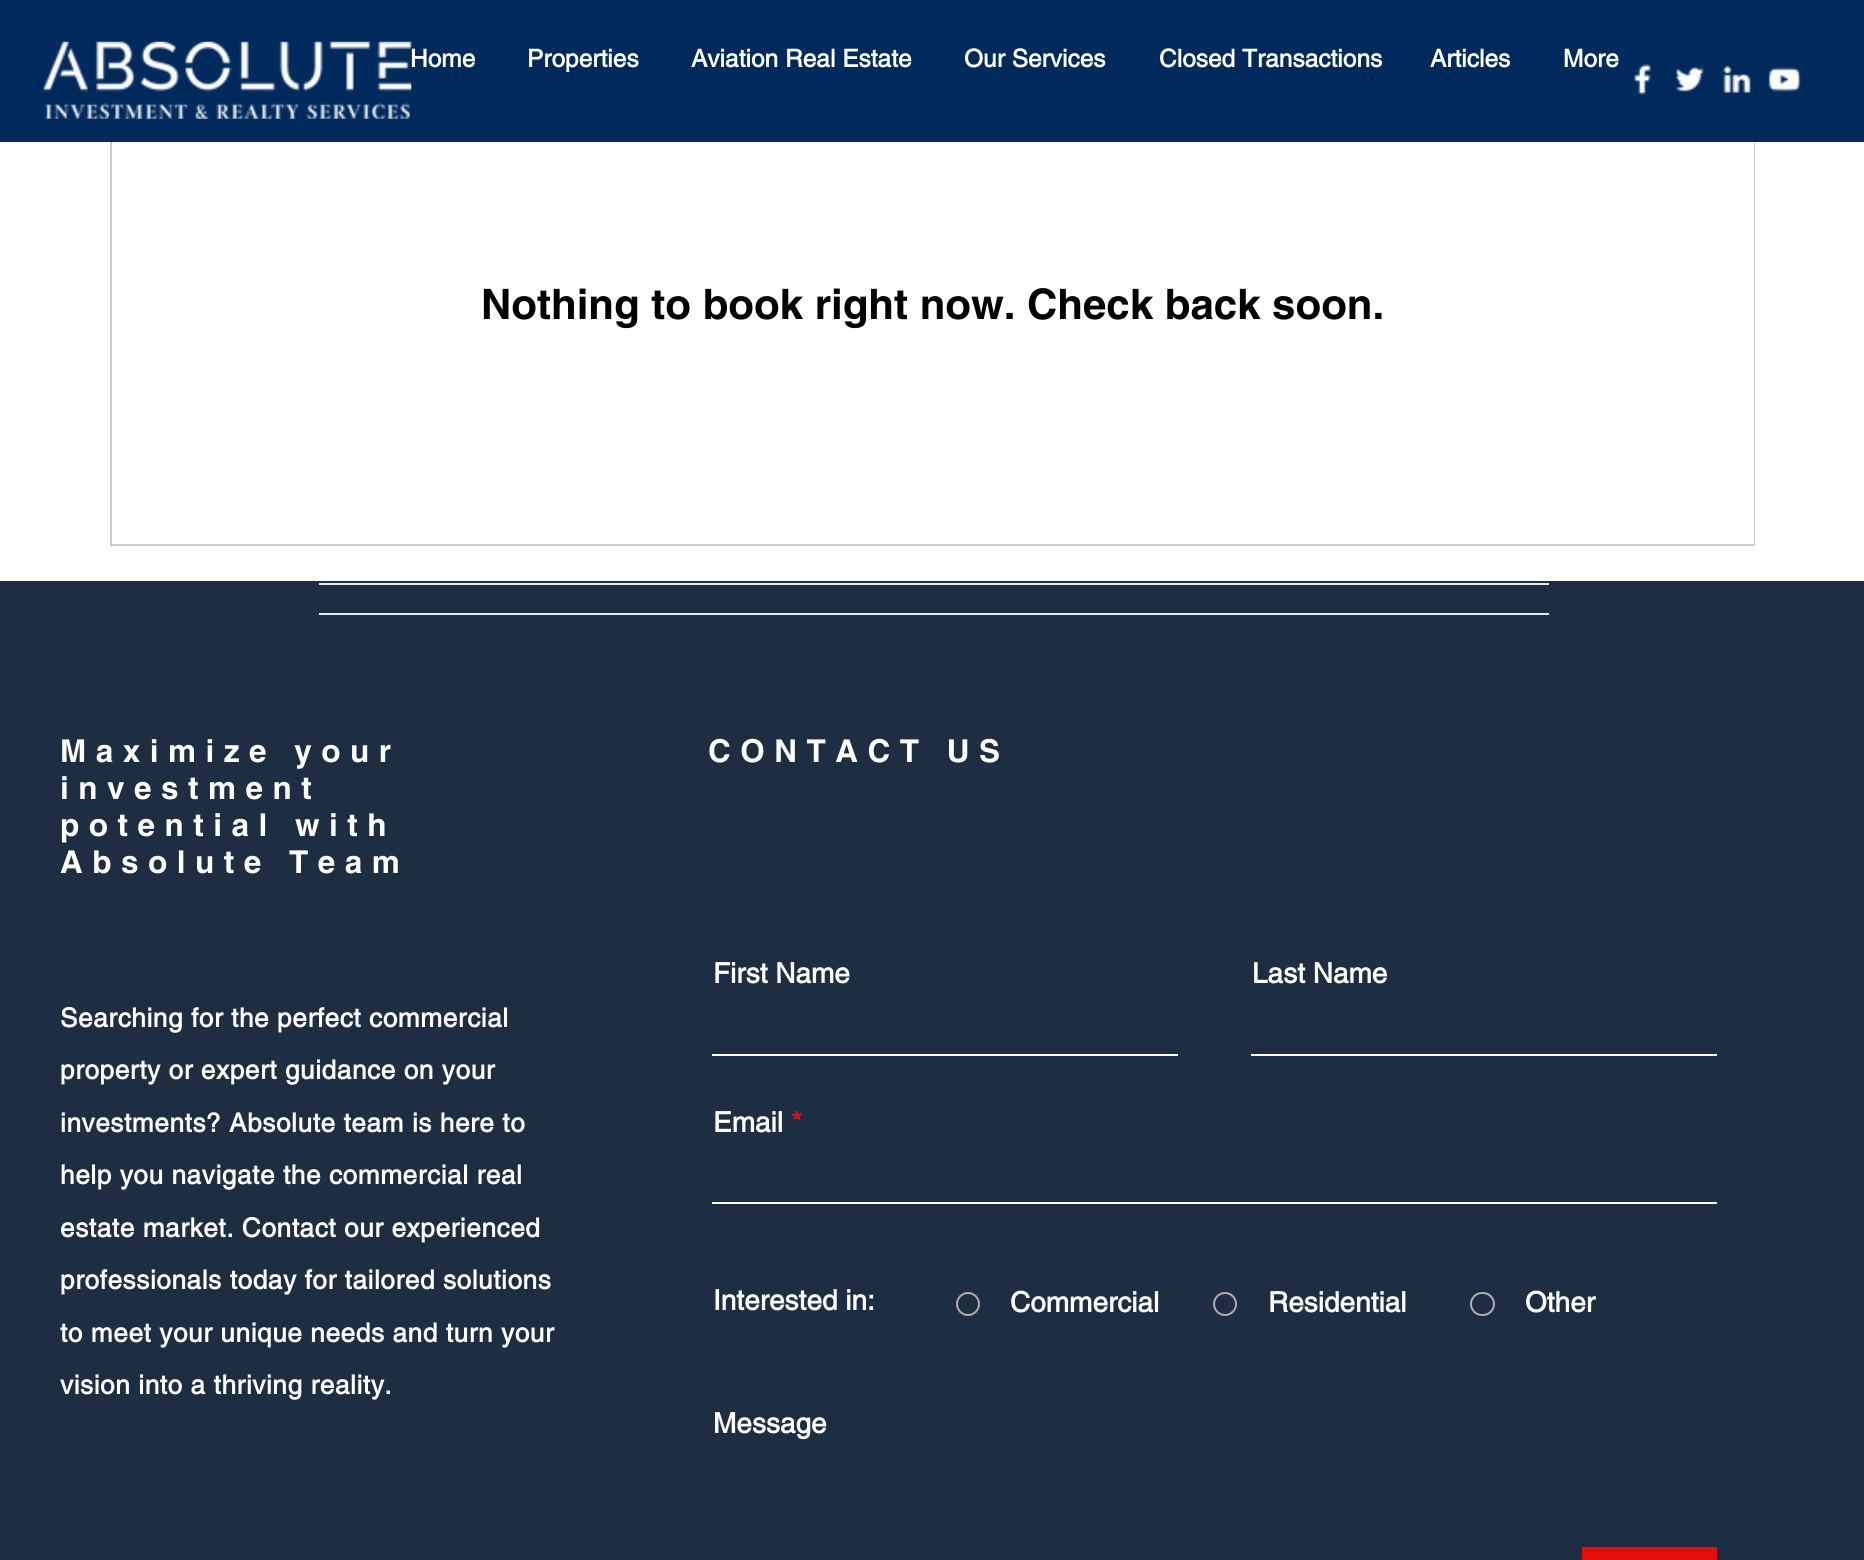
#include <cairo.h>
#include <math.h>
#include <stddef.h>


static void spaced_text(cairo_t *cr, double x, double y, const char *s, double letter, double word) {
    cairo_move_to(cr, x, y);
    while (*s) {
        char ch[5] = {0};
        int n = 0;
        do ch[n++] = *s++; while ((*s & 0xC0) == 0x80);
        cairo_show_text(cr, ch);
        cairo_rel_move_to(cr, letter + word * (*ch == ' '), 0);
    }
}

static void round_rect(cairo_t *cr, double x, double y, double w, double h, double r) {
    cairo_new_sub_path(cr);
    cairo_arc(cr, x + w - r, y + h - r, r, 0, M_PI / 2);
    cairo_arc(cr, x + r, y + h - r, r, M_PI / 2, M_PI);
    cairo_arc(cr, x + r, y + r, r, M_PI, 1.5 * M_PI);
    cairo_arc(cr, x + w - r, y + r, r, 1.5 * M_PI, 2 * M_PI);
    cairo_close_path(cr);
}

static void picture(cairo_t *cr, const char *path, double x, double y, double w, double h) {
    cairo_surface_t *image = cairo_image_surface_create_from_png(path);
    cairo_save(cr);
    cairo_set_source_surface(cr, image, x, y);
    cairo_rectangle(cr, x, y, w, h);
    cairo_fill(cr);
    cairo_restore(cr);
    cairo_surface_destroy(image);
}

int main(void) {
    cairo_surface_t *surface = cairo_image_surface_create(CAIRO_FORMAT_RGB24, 1864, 1560);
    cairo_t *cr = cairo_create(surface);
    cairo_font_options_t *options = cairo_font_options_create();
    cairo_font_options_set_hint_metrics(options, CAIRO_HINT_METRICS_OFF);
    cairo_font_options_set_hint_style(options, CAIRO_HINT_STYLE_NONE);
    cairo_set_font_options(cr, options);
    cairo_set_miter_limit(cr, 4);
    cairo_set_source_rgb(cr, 1, 1, 1);
    cairo_paint(cr);
    cairo_rectangle(cr, 111, 64, 1643, 481);
    cairo_set_source_rgb(cr, 0.8, 0.8, 0.8);
    cairo_stroke(cr);
    cairo_set_source_rgb(cr, 0, 0.165, 0.361);
    cairo_rectangle(cr, 0, 0, 1864, 142);
    cairo_fill(cr);
    picture(cr, "img1.png", 43, 41, 369, 78);
    picture(cr, "img2.png", 1634, 64, 17, 31);
    picture(cr, "img3.png", 1675, 67, 29, 25);
    picture(cr, "img4.png", 1723, 65, 28, 28);
    picture(cr, "img5.png", 1768, 67, 33, 25);
    cairo_select_font_face(cr, "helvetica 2", CAIRO_FONT_SLANT_NORMAL, CAIRO_FONT_WEIGHT_BOLD);
    cairo_set_font_size(cr, 24.5);
    cairo_set_source_rgb(cr, 1, 1, 1);
    cairo_move_to(cr, 410, 67);
    cairo_show_text(cr, "Home");
    cairo_move_to(cr, 527, 67);
    cairo_show_text(cr, "Properties");
    cairo_move_to(cr, 691, 67);
    cairo_show_text(cr, "Aviation Real Estate");
    cairo_move_to(cr, 964, 67);
    cairo_show_text(cr, "Our Services");
    cairo_move_to(cr, 1159, 67);
    cairo_show_text(cr, "Closed Transactions");
    cairo_move_to(cr, 1430, 67);
    cairo_show_text(cr, "Articles");
    cairo_move_to(cr, 1563, 67);
    cairo_show_text(cr, "More");
    cairo_rectangle(cr, 1753, 142, 1, 402);
    cairo_fill(cr);
    cairo_select_font_face(cr, "helvetica", CAIRO_FONT_SLANT_NORMAL, CAIRO_FONT_WEIGHT_BOLD);
    cairo_set_font_size(cr, 42);
    cairo_set_source_rgb(cr, 0, 0, 0);
    cairo_move_to(cr, 481, 319);
    cairo_show_text(cr, "Nothing to book right now. Check back soon.");
    cairo_set_source_rgb(cr, 0.114, 0.176, 0.259);
    cairo_rectangle(cr, 0, 581, 1864, 979);
    cairo_fill(cr);
    cairo_set_source_rgb(cr, 0.894, 0.925, 0.949);
    cairo_rectangle(cr, 319, 583, 1230, 2);
    cairo_fill(cr);
    cairo_rectangle(cr, 319, 613, 1230, 2);
    cairo_fill(cr);
    cairo_set_font_size(cr, 31.5);
    cairo_set_source_rgb(cr, 1, 1, 1);
    spaced_text(cr, 60, 762, "Maximize your", 9.5, 0);
    spaced_text(cr, 60, 799, "investment", 9.5, 0);
    spaced_text(cr, 60, 836, "potential with", 9.5, 0);
    spaced_text(cr, 60, 873, "Absolute Team", 9.5, 0);
    cairo_select_font_face(cr, "helvetica 2", CAIRO_FONT_SLANT_NORMAL, CAIRO_FONT_WEIGHT_BOLD);
    cairo_set_font_size(cr, 26.25);
    spaced_text(cr, 60, 1027, "Searching for the perfect commercial", 0.55, 0);
    spaced_text(cr, 60, 1079, "property or expert guidance on your", 0.55, 0);
    spaced_text(cr, 60, 1132, "investments? Absolute team is here to", 0.55, 0);
    spaced_text(cr, 60, 1184, "help you navigate the commercial real", 0.55, 0);
    spaced_text(cr, 60, 1237, "estate market. Contact our experienced", 0.55, 0);
    spaced_text(cr, 60, 1289, "professionals today for tailored solutions", 0.55, 0);
    spaced_text(cr, 60, 1342, "to meet your unique needs and turn your", 0.55, 0);
    spaced_text(cr, 60, 1394, "vision into a thriving reality.", 0.55, 0);
    cairo_select_font_face(cr, "helvetica", CAIRO_FONT_SLANT_NORMAL, CAIRO_FONT_WEIGHT_BOLD);
    cairo_set_font_size(cr, 31.5);
    spaced_text(cr, 708, 762, "CONTACT US", 9.5, 0);
    cairo_select_font_face(cr, "helvetica 2", CAIRO_FONT_SLANT_NORMAL, CAIRO_FONT_WEIGHT_BOLD);
    cairo_set_font_size(cr, 28);
    cairo_move_to(cr, 713, 983);
    cairo_show_text(cr, "First Name");
    cairo_rectangle(cr, 712, 1054, 466, 2);
    cairo_fill(cr);
    cairo_move_to(cr, 1252, 983);
    cairo_show_text(cr, "Last Name");
    cairo_rectangle(cr, 1251, 1054, 466, 2);
    cairo_fill(cr);
    cairo_move_to(cr, 713, 1132);
    cairo_show_text(cr, "Email");
    cairo_set_source_rgb(cr, 0.898, 0.055, 0.043);
    cairo_move_to(cr, 791, 1132);
    cairo_show_text(cr, "*");
    cairo_set_source_rgb(cr, 1, 1, 1);
    cairo_rectangle(cr, 712, 1202, 1005, 2);
    cairo_fill(cr);
    cairo_move_to(cr, 713, 1310);
    cairo_show_text(cr, "Interested in:");
    cairo_new_path(cr);
    cairo_arc(cr, 968, 1304, 11, 0, 2 * M_PI);
    cairo_set_source_rgb(cr, 0.69, 0.682, 0.682);
    cairo_stroke(cr);
    cairo_set_source_rgb(cr, 1, 1, 1);
    cairo_move_to(cr, 1010, 1312);
    cairo_show_text(cr, "Commercial");
    cairo_new_path(cr);
    cairo_arc(cr, 1225, 1304, 11, 0, 2 * M_PI);
    cairo_set_source_rgb(cr, 0.69, 0.682, 0.682);
    cairo_stroke(cr);
    cairo_set_source_rgb(cr, 1, 1, 1);
    cairo_move_to(cr, 1268, 1312);
    cairo_show_text(cr, "Residential");
    round_rect(cr, 1471, 1293, 23, 22, 11);
    cairo_set_source_rgb(cr, 0.69, 0.682, 0.682);
    cairo_stroke(cr);
    cairo_set_source_rgb(cr, 1, 1, 1);
    cairo_move_to(cr, 1525, 1312);
    cairo_show_text(cr, "Other");
    cairo_move_to(cr, 713, 1433);
    cairo_show_text(cr, "Message");
    cairo_set_source_rgb(cr, 0.898, 0.055, 0.043);
    cairo_rectangle(cr, 1582, 1547, 135, 13);
    cairo_fill(cr);
    cairo_surface_write_to_png(surface, "page.png");
    cairo_font_options_destroy(options);
    cairo_destroy(cr);
    cairo_surface_destroy(surface);
    return 0;
}
